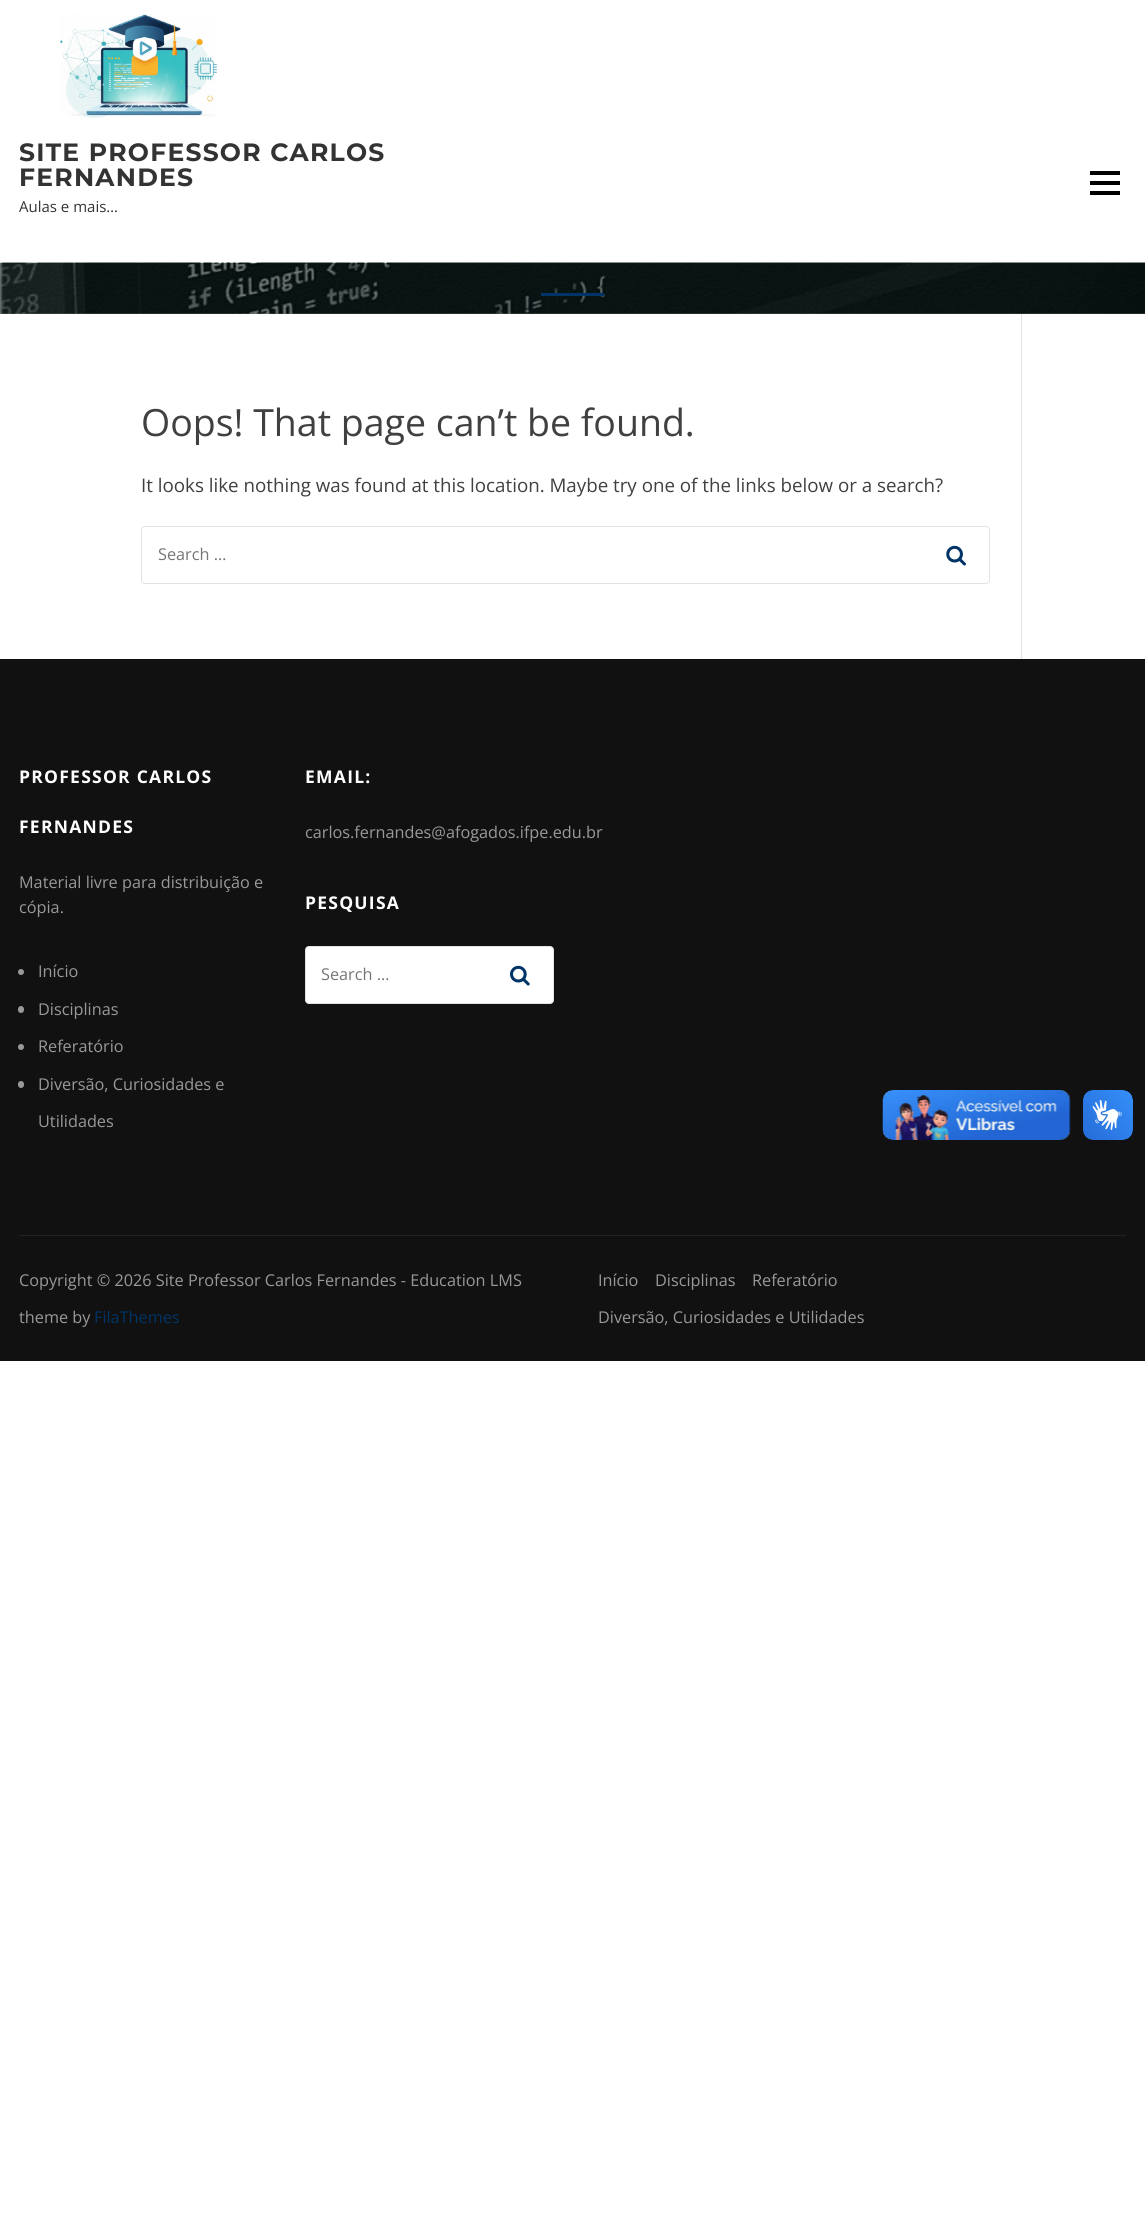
#include <cairo.h>
#include <math.h>
#include <stddef.h>


static void spaced_text(cairo_t *cr, double x, double y, const char *s, double letter, double word) {
    cairo_move_to(cr, x, y);
    while (*s) {
        char ch[5] = {0};
        int n = 0;
        do ch[n++] = *s++; while ((*s & 0xC0) == 0x80);
        cairo_show_text(cr, ch);
        cairo_rel_move_to(cr, letter + word * (*ch == ' '), 0);
    }
}

static void round_rect(cairo_t *cr, double x, double y, double w, double h, double r) {
    cairo_new_sub_path(cr);
    cairo_arc(cr, x + w - r, y + h - r, r, 0, M_PI / 2);
    cairo_arc(cr, x + r, y + h - r, r, M_PI / 2, M_PI);
    cairo_arc(cr, x + r, y + r, r, M_PI, 1.5 * M_PI);
    cairo_arc(cr, x + w - r, y + r, r, 1.5 * M_PI, 2 * M_PI);
    cairo_close_path(cr);
}

static void picture(cairo_t *cr, const char *path, double x, double y, double w, double h) {
    cairo_surface_t *image = cairo_image_surface_create_from_png(path);
    cairo_save(cr);
    cairo_set_source_surface(cr, image, x, y);
    cairo_rectangle(cr, x, y, w, h);
    cairo_fill(cr);
    cairo_restore(cr);
    cairo_surface_destroy(image);
}

int main(void) {
    cairo_surface_t *surface = cairo_image_surface_create(CAIRO_FORMAT_RGB24, 1145, 2229);
    cairo_t *cr = cairo_create(surface);
    cairo_font_options_t *options = cairo_font_options_create();
    cairo_font_options_set_hint_metrics(options, CAIRO_HINT_METRICS_OFF);
    cairo_font_options_set_hint_style(options, CAIRO_HINT_STYLE_NONE);
    cairo_set_font_options(cr, options);
    cairo_set_miter_limit(cr, 4);
    cairo_set_source_rgb(cr, 1, 1, 1);
    cairo_paint(cr);
    picture(cr, "img1.png", 60, 14, 157, 104);
    cairo_select_font_face(cr, "Montserrat", CAIRO_FONT_SLANT_NORMAL, CAIRO_FONT_WEIGHT_BOLD);
    cairo_set_font_size(cr, 25);
    cairo_set_source_rgb(cr, 0.2, 0.2, 0.2);
    spaced_text(cr, 19, 161, "SITE PROFESSOR CARLOS", 1.25, 0);
    spaced_text(cr, 19, 186, "FERNANDES", 1.25, 0);
    cairo_select_font_face(cr, "Open Sans", CAIRO_FONT_SLANT_NORMAL, CAIRO_FONT_WEIGHT_NORMAL);
    cairo_set_font_size(cr, 15);
    cairo_move_to(cr, 19, 212);
    cairo_show_text(cr, "Aulas e mais…");
    cairo_set_source_rgb(cr, 0, 0, 0);
    cairo_rectangle(cr, 1090, 181, 30, 4);
    cairo_fill(cr);
    cairo_rectangle(cr, 1090, 171, 30, 4);
    cairo_fill(cr);
    cairo_rectangle(cr, 1090, 191, 30, 4);
    cairo_fill(cr);
    picture(cr, "img2.png", 0, 262, 1145, 52);
    cairo_set_source_rgba(cr, 0, 0, 0, 0.5);
    cairo_rectangle(cr, 0, 263, 1145, 51);
    cairo_fill(cr);
    cairo_set_source_rgb(cr, 0, 0.2, 0.4);
    cairo_rectangle(cr, 541, 293, 63, 3);
    cairo_fill(cr);
    cairo_set_source_rgb(cr, 0.882, 0.886, 0.894);
    cairo_rectangle(cr, 1021, 314, 1, 345);
    cairo_fill(cr);
    cairo_set_font_size(cr, 37.5);
    cairo_set_source_rgb(cr, 0.251, 0.251, 0.251);
    cairo_move_to(cr, 141, 436);
    cairo_show_text(cr, "Oops! That page can’t be found.");
    cairo_set_font_size(cr, 18.75);
    cairo_move_to(cr, 141, 492);
    cairo_show_text(cr, "It looks like nothing was found at this location. Maybe try one of the links below or a search?");
    round_rect(cr, 141.5, 526.5, 848, 57, 3.5);
    cairo_set_source_rgb(cr, 0.89, 0.89, 0.89);
    cairo_set_line_width(cr, 1);
    cairo_stroke(cr);
    cairo_set_font_size(cr, 16.25);
    cairo_set_source_rgb(cr, 0.459, 0.459, 0.459);
    cairo_move_to(cr, 158, 560);
    cairo_show_text(cr, "Search …");
    picture(cr, "img3.png", 946, 545, 20, 21);
    cairo_set_source_rgb(cr, 0.067, 0.067, 0.067);
    cairo_rectangle(cr, 0, 659, 1145, 702);
    cairo_fill(cr);
    cairo_select_font_face(cr, "Open Sans", CAIRO_FONT_SLANT_NORMAL, CAIRO_FONT_WEIGHT_BOLD);
    cairo_set_font_size(cr, 17.5);
    cairo_set_source_rgb(cr, 1, 1, 1);
    spaced_text(cr, 19, 783, "PROFESSOR CARLOS", 1.25, 0);
    spaced_text(cr, 19, 833, "FERNANDES", 1.25, 0);
    cairo_select_font_face(cr, "Open Sans", CAIRO_FONT_SLANT_NORMAL, CAIRO_FONT_WEIGHT_NORMAL);
    cairo_set_font_size(cr, 16.25);
    cairo_set_source_rgb(cr, 0.6, 0.6, 0.6);
    cairo_move_to(cr, 19, 888);
    cairo_show_text(cr, "Material livre para distribuição e");
    cairo_move_to(cr, 19, 913);
    cairo_show_text(cr, "cópia.");
    cairo_new_path(cr);
    cairo_arc(cr, 21, 972, 3, 0, 2 * M_PI);
    cairo_fill(cr);
    cairo_move_to(cr, 38, 977);
    cairo_show_text(cr, "Início");
    round_rect(cr, 18, 1006, 6, 7, 3);
    cairo_fill(cr);
    cairo_move_to(cr, 38, 1015);
    cairo_show_text(cr, "Disciplinas");
    cairo_new_path(cr);
    cairo_arc(cr, 21, 1047, 3, 0, 2 * M_PI);
    cairo_fill(cr);
    cairo_move_to(cr, 38, 1052);
    cairo_show_text(cr, "Referatório");
    round_rect(cr, 18, 1081, 6, 7, 3);
    cairo_fill(cr);
    cairo_move_to(cr, 38, 1090);
    cairo_show_text(cr, "Diversão, Curiosidades e");
    cairo_move_to(cr, 38, 1127);
    cairo_show_text(cr, "Utilidades");
    cairo_select_font_face(cr, "Open Sans", CAIRO_FONT_SLANT_NORMAL, CAIRO_FONT_WEIGHT_BOLD);
    cairo_set_font_size(cr, 17.5);
    cairo_set_source_rgb(cr, 1, 1, 1);
    spaced_text(cr, 305, 783, "EMAIL:", 1.25, 0);
    cairo_select_font_face(cr, "Open Sans", CAIRO_FONT_SLANT_NORMAL, CAIRO_FONT_WEIGHT_NORMAL);
    cairo_set_font_size(cr, 16.25);
    cairo_set_source_rgb(cr, 0.6, 0.6, 0.6);
    cairo_move_to(cr, 305, 838);
    cairo_show_text(cr, "carlos.fernandes@afogados.ifpe.edu.br");
    cairo_select_font_face(cr, "Open Sans", CAIRO_FONT_SLANT_NORMAL, CAIRO_FONT_WEIGHT_BOLD);
    cairo_set_font_size(cr, 17.5);
    cairo_set_source_rgb(cr, 1, 1, 1);
    spaced_text(cr, 305, 909, "PESQUISA", 1.25, 0);
    round_rect(cr, 305.5, 946.5, 248, 57, 3.5);
    cairo_fill_preserve(cr);
    cairo_set_source_rgb(cr, 0.89, 0.89, 0.89);
    cairo_stroke(cr);
    cairo_select_font_face(cr, "Open Sans", CAIRO_FONT_SLANT_NORMAL, CAIRO_FONT_WEIGHT_NORMAL);
    cairo_set_font_size(cr, 16.25);
    cairo_set_source_rgb(cr, 0.459, 0.459, 0.459);
    cairo_move_to(cr, 321, 980);
    cairo_show_text(cr, "Search …");
    picture(cr, "img4.png", 510, 965, 20, 21);
    cairo_set_source_rgb(cr, 0.133, 0.133, 0.133);
    cairo_rectangle(cr, 19, 1235, 1107, 1);
    cairo_fill(cr);
    cairo_set_source_rgb(cr, 0.6, 0.6, 0.6);
    cairo_move_to(cr, 19, 1286);
    cairo_show_text(cr, "Copyright © 2026 Site Professor Carlos Fernandes - Education LMS");
    cairo_move_to(cr, 19, 1323);
    cairo_show_text(cr, "theme by");
    cairo_set_source_rgb(cr, 0, 0.2, 0.4);
    cairo_move_to(cr, 94, 1323);
    cairo_show_text(cr, "FilaThemes");
    cairo_set_source_rgb(cr, 0.6, 0.6, 0.6);
    cairo_move_to(cr, 598, 1286);
    cairo_show_text(cr, "Início");
    cairo_move_to(cr, 655, 1286);
    cairo_show_text(cr, "Disciplinas");
    cairo_move_to(cr, 752, 1286);
    cairo_show_text(cr, "Referatório");
    cairo_move_to(cr, 598, 1323);
    cairo_show_text(cr, "Diversão, Curiosidades e Utilidades");
    picture(cr, "img5.png", 882, 1090, 189, 50);
    picture(cr, "img6.png", 1083, 1090, 50, 50);
    cairo_surface_write_to_png(surface, "page.png");
    cairo_font_options_destroy(options);
    cairo_destroy(cr);
    cairo_surface_destroy(surface);
    return 0;
}
